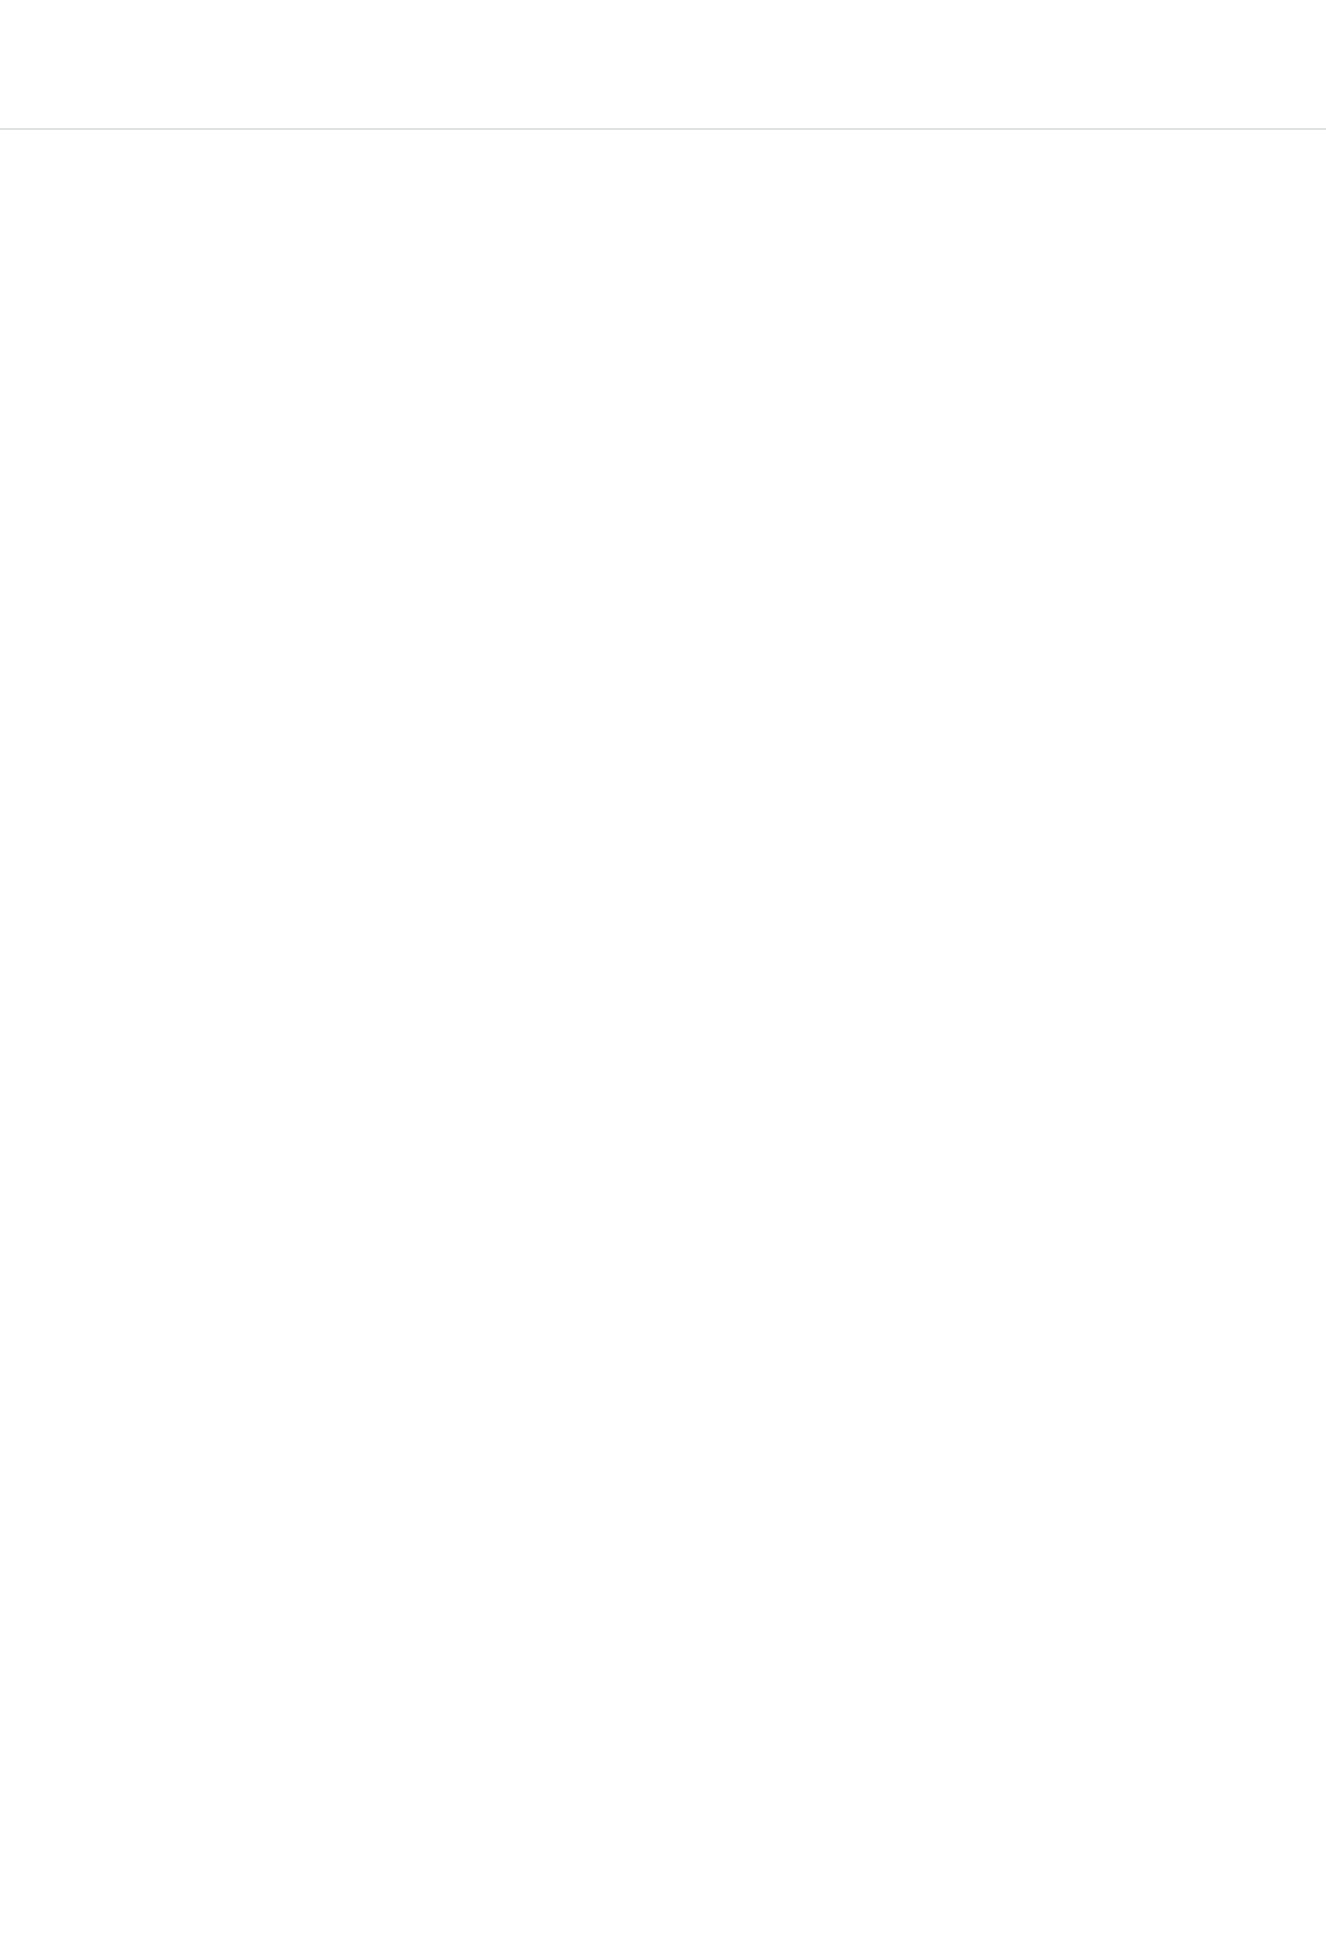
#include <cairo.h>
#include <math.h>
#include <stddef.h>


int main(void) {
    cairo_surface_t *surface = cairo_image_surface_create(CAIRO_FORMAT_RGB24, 1326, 1940);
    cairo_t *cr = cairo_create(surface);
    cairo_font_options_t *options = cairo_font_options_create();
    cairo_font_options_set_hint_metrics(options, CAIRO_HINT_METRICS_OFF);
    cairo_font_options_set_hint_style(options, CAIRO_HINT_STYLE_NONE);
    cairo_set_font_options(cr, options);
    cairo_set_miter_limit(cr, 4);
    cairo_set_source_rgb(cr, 1, 1, 1);
    cairo_paint(cr);
    cairo_set_source_rgb(cr, 0.878, 0.886, 0.886);
    cairo_rectangle(cr, 0, 128, 1326, 2);
    cairo_fill(cr);
    cairo_surface_write_to_png(surface, "page.png");
    cairo_font_options_destroy(options);
    cairo_destroy(cr);
    cairo_surface_destroy(surface);
    return 0;
}
